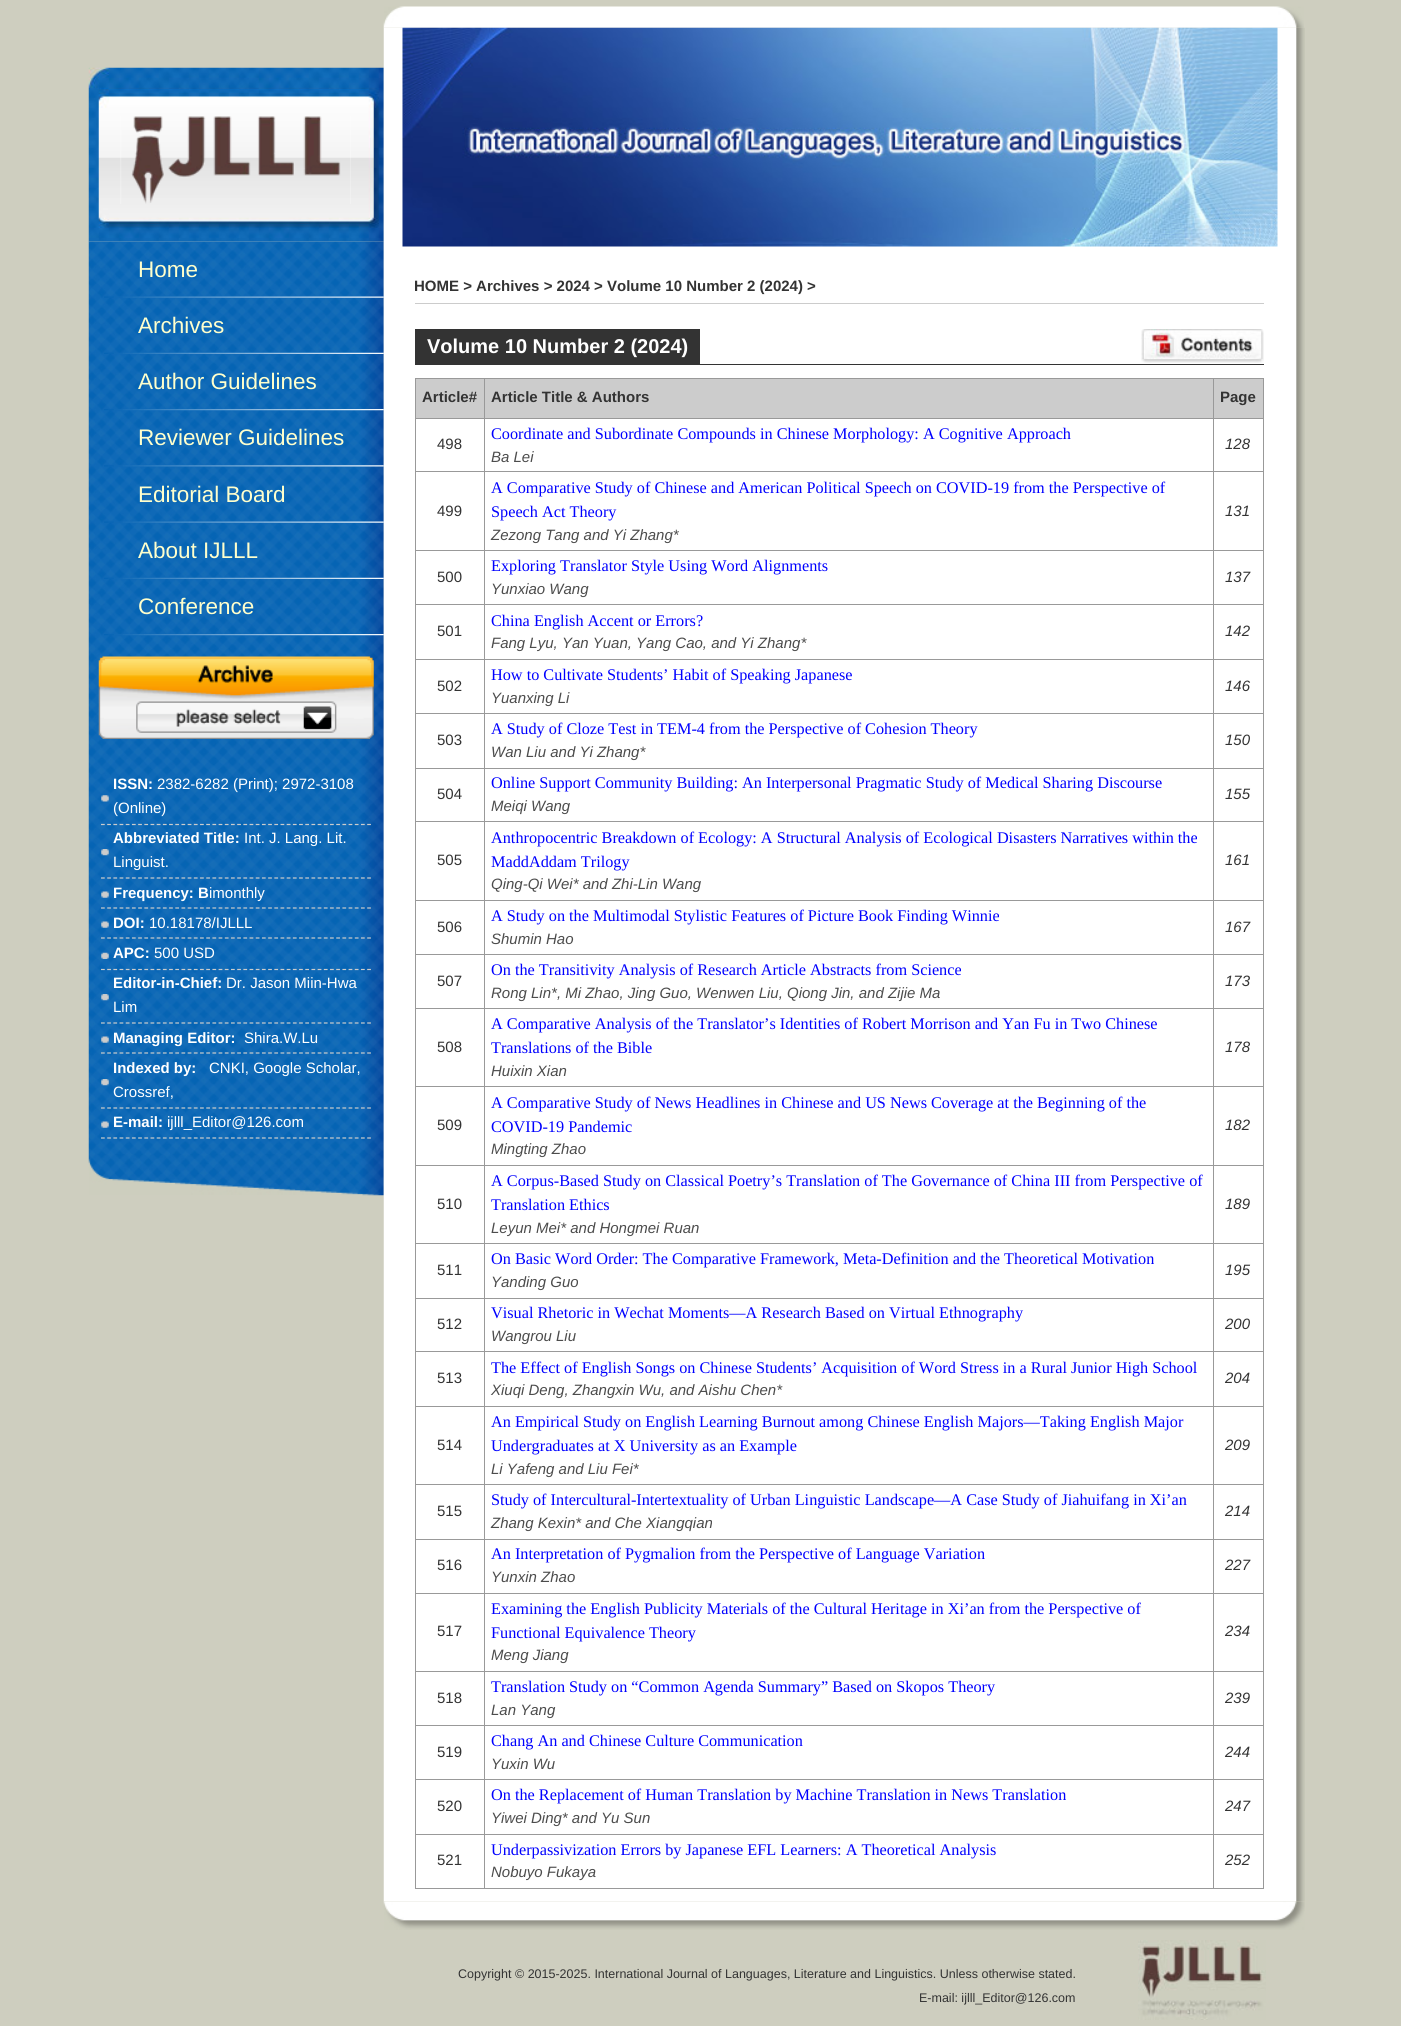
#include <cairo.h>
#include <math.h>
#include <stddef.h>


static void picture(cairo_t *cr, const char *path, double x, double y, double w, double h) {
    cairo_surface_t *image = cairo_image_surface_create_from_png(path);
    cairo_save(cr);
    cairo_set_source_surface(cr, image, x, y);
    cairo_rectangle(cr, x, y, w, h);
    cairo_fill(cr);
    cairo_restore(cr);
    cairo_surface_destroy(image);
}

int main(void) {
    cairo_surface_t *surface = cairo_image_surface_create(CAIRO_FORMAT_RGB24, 1401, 2026);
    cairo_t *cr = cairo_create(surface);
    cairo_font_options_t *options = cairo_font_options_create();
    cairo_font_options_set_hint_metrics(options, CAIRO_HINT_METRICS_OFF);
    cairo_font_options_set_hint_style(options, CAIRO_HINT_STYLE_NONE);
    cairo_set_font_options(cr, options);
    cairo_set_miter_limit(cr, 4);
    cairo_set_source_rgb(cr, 0.808, 0.808, 0.749);
    cairo_paint(cr);
    picture(cr, "img1.png", 88, 67, 296, 175);
    picture(cr, "img2.png", 120, 116, 231, 88);
    picture(cr, "img3.png", 88, 241, 296, 913);
    picture(cr, "img20.png", 88, 1154, 296, 42);
    picture(cr, "img21.png", 383, 6, 921, 22);
    picture(cr, "img22.png", 383, 27, 922, 1875);
    picture(cr, "img4.png", 104, 296, 280, 2);
    cairo_select_font_face(cr, "Liberation Sans", CAIRO_FONT_SLANT_NORMAL, CAIRO_FONT_WEIGHT_NORMAL);
    cairo_set_font_size(cr, 22.5);
    cairo_set_source_rgb(cr, 1, 1, 0.8);
    cairo_move_to(cr, 138, 277);
    cairo_show_text(cr, "Home");
    picture(cr, "img5.png", 104, 352, 280, 2);
    cairo_move_to(cr, 138, 333);
    cairo_show_text(cr, "Archives");
    picture(cr, "img6.png", 104, 409, 280, 2);
    cairo_move_to(cr, 138, 389);
    cairo_show_text(cr, "Author Guidelines");
    picture(cr, "img7.png", 104, 465, 280, 2);
    cairo_move_to(cr, 138, 445);
    cairo_show_text(cr, "Reviewer Guidelines");
    picture(cr, "img8.png", 104, 521, 280, 2);
    cairo_move_to(cr, 138, 502);
    cairo_show_text(cr, "Editorial Board");
    picture(cr, "img5.png", 104, 577, 280, 2);
    cairo_move_to(cr, 138, 558);
    cairo_show_text(cr, "About IJLLL");
    picture(cr, "img9.png", 104, 634, 280, 2);
    cairo_move_to(cr, 138, 614);
    cairo_show_text(cr, "Conference");
    picture(cr, "img10.png", 98, 656, 276, 83);
    picture(cr, "img11.png", 101, 795, 8, 7);
    cairo_new_path(cr);
    cairo_move_to(cr, 101, 824.5);
    cairo_line_to(cr, 371, 824.5);
    cairo_set_source_rgb(cr, 0.8, 0.8, 0.8);
    cairo_set_line_width(cr, 1.2);
    cairo_set_dash(cr, (double[]){3.75, 2.44}, 2, 0);
    cairo_stroke(cr);
    cairo_select_font_face(cr, "Liberation Sans", CAIRO_FONT_SLANT_NORMAL, CAIRO_FONT_WEIGHT_BOLD);
    cairo_set_font_size(cr, 15);
    cairo_set_source_rgb(cr, 1, 1, 1);
    cairo_move_to(cr, 113, 789);
    cairo_show_text(cr, "ISSN:");
    cairo_select_font_face(cr, "Liberation Sans", CAIRO_FONT_SLANT_NORMAL, CAIRO_FONT_WEIGHT_NORMAL);
    cairo_move_to(cr, 157, 789);
    cairo_show_text(cr, "2382-6282 (Print); 2972-3108");
    cairo_move_to(cr, 113, 813);
    cairo_show_text(cr, "(Online)");
    picture(cr, "img12.png", 101, 849, 8, 7);
    cairo_new_path(cr);
    cairo_move_to(cr, 101, 878);
    cairo_line_to(cr, 371, 878);
    cairo_set_source_rgb(cr, 0.8, 0.8, 0.8);
    cairo_stroke(cr);
    cairo_select_font_face(cr, "Liberation Sans", CAIRO_FONT_SLANT_NORMAL, CAIRO_FONT_WEIGHT_BOLD);
    cairo_set_source_rgb(cr, 1, 1, 1);
    cairo_move_to(cr, 113, 843);
    cairo_show_text(cr, "Abbreviated Title:");
    cairo_select_font_face(cr, "Liberation Sans", CAIRO_FONT_SLANT_NORMAL, CAIRO_FONT_WEIGHT_NORMAL);
    cairo_move_to(cr, 244, 843);
    cairo_show_text(cr, "Int. J. Lang. Lit.");
    cairo_move_to(cr, 113, 867);
    cairo_show_text(cr, "Linguist.");
    picture(cr, "img13.png", 101, 891, 8, 7);
    cairo_new_path(cr);
    cairo_move_to(cr, 101, 908);
    cairo_line_to(cr, 371, 908);
    cairo_set_source_rgb(cr, 0.8, 0.8, 0.8);
    cairo_stroke(cr);
    cairo_select_font_face(cr, "Liberation Sans", CAIRO_FONT_SLANT_NORMAL, CAIRO_FONT_WEIGHT_BOLD);
    cairo_set_source_rgb(cr, 1, 1, 1);
    cairo_move_to(cr, 113, 898);
    cairo_show_text(cr, "Frequency: B");
    cairo_select_font_face(cr, "Liberation Sans", CAIRO_FONT_SLANT_NORMAL, CAIRO_FONT_WEIGHT_NORMAL);
    cairo_move_to(cr, 209, 898);
    cairo_show_text(cr, "imonthly");
    picture(cr, "img14.png", 101, 921, 8, 7);
    cairo_new_path(cr);
    cairo_move_to(cr, 101, 938);
    cairo_line_to(cr, 371, 938);
    cairo_set_source_rgb(cr, 0.8, 0.8, 0.8);
    cairo_stroke(cr);
    cairo_select_font_face(cr, "Liberation Sans", CAIRO_FONT_SLANT_NORMAL, CAIRO_FONT_WEIGHT_BOLD);
    cairo_set_source_rgb(cr, 1, 1, 1);
    cairo_move_to(cr, 113, 928);
    cairo_show_text(cr, "DOI:");
    cairo_select_font_face(cr, "Liberation Sans", CAIRO_FONT_SLANT_NORMAL, CAIRO_FONT_WEIGHT_NORMAL);
    cairo_move_to(cr, 149, 928);
    cairo_show_text(cr, "10.18178/IJLLL");
    picture(cr, "img15.png", 101, 952, 8, 7);
    cairo_new_path(cr);
    cairo_move_to(cr, 101, 969.5);
    cairo_line_to(cr, 371, 969.5);
    cairo_set_source_rgb(cr, 0.8, 0.8, 0.8);
    cairo_stroke(cr);
    cairo_select_font_face(cr, "Liberation Sans", CAIRO_FONT_SLANT_NORMAL, CAIRO_FONT_WEIGHT_BOLD);
    cairo_set_source_rgb(cr, 1, 1, 1);
    cairo_move_to(cr, 113, 958);
    cairo_show_text(cr, "APC:");
    cairo_select_font_face(cr, "Liberation Sans", CAIRO_FONT_SLANT_NORMAL, CAIRO_FONT_WEIGHT_NORMAL);
    cairo_move_to(cr, 154, 958);
    cairo_show_text(cr, "500 USD");
    picture(cr, "img16.png", 101, 994, 8, 7);
    cairo_new_path(cr);
    cairo_move_to(cr, 101, 1023);
    cairo_line_to(cr, 371, 1023);
    cairo_set_source_rgb(cr, 0.8, 0.8, 0.8);
    cairo_stroke(cr);
    cairo_select_font_face(cr, "Liberation Sans", CAIRO_FONT_SLANT_NORMAL, CAIRO_FONT_WEIGHT_BOLD);
    cairo_set_source_rgb(cr, 1, 1, 1);
    cairo_move_to(cr, 113, 988);
    cairo_show_text(cr, "Editor-in-Chief:");
    cairo_select_font_face(cr, "Liberation Sans", CAIRO_FONT_SLANT_NORMAL, CAIRO_FONT_WEIGHT_NORMAL);
    cairo_move_to(cr, 226, 988);
    cairo_show_text(cr, "Dr. Jason Miin-Hwa");
    cairo_move_to(cr, 113, 1012);
    cairo_show_text(cr, "Lim");
    picture(cr, "img17.png", 101, 1036, 8, 7);
    cairo_new_path(cr);
    cairo_move_to(cr, 101, 1053);
    cairo_line_to(cr, 371, 1053);
    cairo_set_source_rgb(cr, 0.8, 0.8, 0.8);
    cairo_stroke(cr);
    cairo_select_font_face(cr, "Liberation Sans", CAIRO_FONT_SLANT_NORMAL, CAIRO_FONT_WEIGHT_BOLD);
    cairo_set_source_rgb(cr, 1, 1, 1);
    cairo_move_to(cr, 113, 1043);
    cairo_show_text(cr, "Managing Editor:");
    cairo_select_font_face(cr, "Liberation Sans", CAIRO_FONT_SLANT_NORMAL, CAIRO_FONT_WEIGHT_NORMAL);
    cairo_move_to(cr, 244, 1043);
    cairo_show_text(cr, "Shira.W.Lu");
    picture(cr, "img18.png", 101, 1079, 8, 7);
    cairo_new_path(cr);
    cairo_move_to(cr, 101, 1108);
    cairo_line_to(cr, 371, 1108);
    cairo_set_source_rgb(cr, 0.8, 0.8, 0.8);
    cairo_stroke(cr);
    cairo_select_font_face(cr, "Liberation Sans", CAIRO_FONT_SLANT_NORMAL, CAIRO_FONT_WEIGHT_BOLD);
    cairo_set_source_rgb(cr, 1, 1, 1);
    cairo_move_to(cr, 113, 1073);
    cairo_show_text(cr, "Indexed by:");
    cairo_select_font_face(cr, "Liberation Sans", CAIRO_FONT_SLANT_NORMAL, CAIRO_FONT_WEIGHT_NORMAL);
    cairo_move_to(cr, 209, 1073);
    cairo_show_text(cr, "CNKI, Google Scholar,");
    cairo_move_to(cr, 113, 1097);
    cairo_show_text(cr, "Crossref,");
    picture(cr, "img19.png", 101, 1121, 8, 7);
    cairo_new_path(cr);
    cairo_move_to(cr, 101, 1138);
    cairo_line_to(cr, 371, 1138);
    cairo_set_source_rgb(cr, 0.8, 0.8, 0.8);
    cairo_stroke(cr);
    cairo_select_font_face(cr, "Liberation Sans", CAIRO_FONT_SLANT_NORMAL, CAIRO_FONT_WEIGHT_BOLD);
    cairo_set_source_rgb(cr, 1, 1, 1);
    cairo_move_to(cr, 113, 1127);
    cairo_show_text(cr, "E-mail:");
    cairo_select_font_face(cr, "Liberation Sans", CAIRO_FONT_SLANT_NORMAL, CAIRO_FONT_WEIGHT_NORMAL);
    cairo_move_to(cr, 167, 1127);
    cairo_show_text(cr, "ijlll_Editor@126.com");
    picture(cr, "img23.png", 402, 27, 876, 220);
    cairo_set_source_rgb(cr, 0.8, 0.8, 0.8);
    cairo_rectangle(cr, 415, 303, 849, 1);
    cairo_fill(cr);
    cairo_select_font_face(cr, "Liberation Sans", CAIRO_FONT_SLANT_NORMAL, CAIRO_FONT_WEIGHT_BOLD);
    cairo_set_source_rgb(cr, 0.2, 0.2, 0.2);
    cairo_move_to(cr, 414, 291);
    cairo_show_text(cr, "HOME > Archives > 2024 > Volume 10 Number 2 (2024) >");
    cairo_rectangle(cr, 415, 329, 285, 35);
    cairo_fill(cr);
    cairo_set_font_size(cr, 20);
    cairo_set_source_rgb(cr, 1, 1, 1);
    cairo_move_to(cr, 427, 353);
    cairo_show_text(cr, "Volume 10 Number 2 (2024)");
    picture(cr, "img24.png", 1141, 329, 123, 34);
    cairo_set_source_rgb(cr, 0.2, 0.2, 0.2);
    cairo_rectangle(cr, 415, 364, 849, 1);
    cairo_fill(cr);
    cairo_set_source_rgb(cr, 0.6, 0.6, 0.6);
    cairo_rectangle(cr, 415, 378, 849, 1);
    cairo_fill(cr);
    cairo_rectangle(cr, 1263, 378, 1, 1511);
    cairo_fill(cr);
    cairo_rectangle(cr, 415, 1888, 849, 1);
    cairo_fill(cr);
    cairo_rectangle(cr, 415, 378, 1, 1511);
    cairo_fill(cr);
    cairo_set_source_rgb(cr, 0.8, 0.8, 0.8);
    cairo_rectangle(cr, 416, 379, 847, 39);
    cairo_fill(cr);
    cairo_set_font_size(cr, 15);
    cairo_set_source_rgb(cr, 0.2, 0.2, 0.2);
    cairo_move_to(cr, 422, 402);
    cairo_show_text(cr, "Article#");
    cairo_set_source_rgb(cr, 0.6, 0.6, 0.6);
    cairo_rectangle(cr, 1213, 418, 51, 1);
    cairo_fill(cr);
    cairo_rectangle(cr, 1213, 471, 51, 1);
    cairo_fill(cr);
    cairo_rectangle(cr, 1213, 550, 51, 1);
    cairo_fill(cr);
    cairo_rectangle(cr, 1213, 604, 51, 1);
    cairo_fill(cr);
    cairo_rectangle(cr, 1213, 659, 51, 1);
    cairo_fill(cr);
    cairo_rectangle(cr, 1213, 713, 51, 1);
    cairo_fill(cr);
    cairo_rectangle(cr, 1213, 768, 51, 1);
    cairo_fill(cr);
    cairo_rectangle(cr, 1213, 821, 51, 1);
    cairo_fill(cr);
    cairo_rectangle(cr, 1213, 900, 51, 1);
    cairo_fill(cr);
    cairo_rectangle(cr, 1213, 954, 51, 1);
    cairo_fill(cr);
    cairo_rectangle(cr, 1213, 1008, 51, 1);
    cairo_fill(cr);
    cairo_rectangle(cr, 1213, 1086, 51, 1);
    cairo_fill(cr);
    cairo_rectangle(cr, 1213, 1165, 51, 1);
    cairo_fill(cr);
    cairo_rectangle(cr, 1213, 1243, 51, 1);
    cairo_fill(cr);
    cairo_rectangle(cr, 1213, 1298, 51, 1);
    cairo_fill(cr);
    cairo_rectangle(cr, 1213, 1351, 51, 1);
    cairo_fill(cr);
    cairo_rectangle(cr, 1213, 1406, 51, 1);
    cairo_fill(cr);
    cairo_rectangle(cr, 1213, 1484, 51, 1);
    cairo_fill(cr);
    cairo_rectangle(cr, 1213, 1539, 51, 1);
    cairo_fill(cr);
    cairo_rectangle(cr, 1213, 1593, 51, 1);
    cairo_fill(cr);
    cairo_rectangle(cr, 1213, 1671, 51, 1);
    cairo_fill(cr);
    cairo_rectangle(cr, 1213, 1725, 51, 1);
    cairo_fill(cr);
    cairo_rectangle(cr, 1213, 1779, 51, 1);
    cairo_fill(cr);
    cairo_rectangle(cr, 1213, 1834, 51, 1);
    cairo_fill(cr);
    cairo_rectangle(cr, 1213, 1834, 1, 55);
    cairo_fill(cr);
    cairo_rectangle(cr, 484, 1834, 730, 1);
    cairo_fill(cr);
    cairo_rectangle(cr, 1213, 1779, 1, 56);
    cairo_fill(cr);
    cairo_rectangle(cr, 484, 1779, 730, 1);
    cairo_fill(cr);
    cairo_rectangle(cr, 1213, 1725, 1, 55);
    cairo_fill(cr);
    cairo_rectangle(cr, 484, 1725, 730, 1);
    cairo_fill(cr);
    cairo_rectangle(cr, 1213, 1671, 1, 55);
    cairo_fill(cr);
    cairo_rectangle(cr, 484, 1671, 730, 1);
    cairo_fill(cr);
    cairo_rectangle(cr, 1213, 1593, 1, 80);
    cairo_fill(cr);
    cairo_rectangle(cr, 484, 1593, 730, 1);
    cairo_fill(cr);
    cairo_rectangle(cr, 1213, 1539, 1, 55);
    cairo_fill(cr);
    cairo_rectangle(cr, 484, 1539, 730, 1);
    cairo_fill(cr);
    cairo_rectangle(cr, 1213, 1484, 1, 56);
    cairo_fill(cr);
    cairo_rectangle(cr, 484, 1484, 730, 1);
    cairo_fill(cr);
    cairo_rectangle(cr, 1213, 1406, 1, 79);
    cairo_fill(cr);
    cairo_rectangle(cr, 484, 1406, 730, 1);
    cairo_fill(cr);
    cairo_rectangle(cr, 1213, 1351, 1, 57);
    cairo_fill(cr);
    cairo_rectangle(cr, 484, 1351, 730, 1);
    cairo_fill(cr);
    cairo_rectangle(cr, 1213, 1298, 1, 55);
    cairo_fill(cr);
    cairo_rectangle(cr, 484, 1298, 730, 1);
    cairo_fill(cr);
    cairo_rectangle(cr, 1213, 1243, 1, 56);
    cairo_fill(cr);
    cairo_rectangle(cr, 484, 1243, 730, 1);
    cairo_fill(cr);
    cairo_rectangle(cr, 1213, 1165, 1, 79);
    cairo_fill(cr);
    cairo_rectangle(cr, 484, 1165, 730, 1);
    cairo_fill(cr);
    cairo_rectangle(cr, 1213, 1086, 1, 80);
    cairo_fill(cr);
    cairo_rectangle(cr, 484, 1086, 730, 1);
    cairo_fill(cr);
    cairo_rectangle(cr, 1213, 1008, 1, 80);
    cairo_fill(cr);
    cairo_rectangle(cr, 484, 1008, 730, 1);
    cairo_fill(cr);
    cairo_rectangle(cr, 1213, 954, 1, 55);
    cairo_fill(cr);
    cairo_rectangle(cr, 484, 954, 730, 1);
    cairo_fill(cr);
    cairo_rectangle(cr, 1213, 900, 1, 55);
    cairo_fill(cr);
    cairo_rectangle(cr, 484, 900, 730, 1);
    cairo_fill(cr);
    cairo_rectangle(cr, 1213, 821, 1, 80);
    cairo_fill(cr);
    cairo_rectangle(cr, 484, 821, 730, 1);
    cairo_fill(cr);
    cairo_rectangle(cr, 1213, 768, 1, 55);
    cairo_fill(cr);
    cairo_rectangle(cr, 484, 768, 730, 1);
    cairo_fill(cr);
    cairo_rectangle(cr, 1213, 713, 1, 56);
    cairo_fill(cr);
    cairo_rectangle(cr, 484, 713, 730, 1);
    cairo_fill(cr);
    cairo_rectangle(cr, 1213, 659, 1, 55);
    cairo_fill(cr);
    cairo_rectangle(cr, 484, 659, 730, 1);
    cairo_fill(cr);
    cairo_rectangle(cr, 1213, 604, 1, 56);
    cairo_fill(cr);
    cairo_rectangle(cr, 484, 604, 730, 1);
    cairo_fill(cr);
    cairo_rectangle(cr, 1213, 550, 1, 55);
    cairo_fill(cr);
    cairo_rectangle(cr, 484, 550, 730, 1);
    cairo_fill(cr);
    cairo_rectangle(cr, 1213, 471, 1, 80);
    cairo_fill(cr);
    cairo_rectangle(cr, 484, 471, 730, 1);
    cairo_fill(cr);
    cairo_rectangle(cr, 1213, 418, 1, 55);
    cairo_fill(cr);
    cairo_rectangle(cr, 484, 418, 730, 1);
    cairo_fill(cr);
    cairo_rectangle(cr, 484, 1834, 1, 55);
    cairo_fill(cr);
    cairo_rectangle(cr, 415, 1834, 70, 1);
    cairo_fill(cr);
    cairo_rectangle(cr, 484, 1779, 1, 56);
    cairo_fill(cr);
    cairo_rectangle(cr, 415, 1779, 70, 1);
    cairo_fill(cr);
    cairo_rectangle(cr, 484, 1725, 1, 55);
    cairo_fill(cr);
    cairo_rectangle(cr, 415, 1725, 70, 1);
    cairo_fill(cr);
    cairo_rectangle(cr, 484, 1671, 1, 55);
    cairo_fill(cr);
    cairo_rectangle(cr, 415, 1671, 70, 1);
    cairo_fill(cr);
    cairo_rectangle(cr, 484, 1593, 1, 80);
    cairo_fill(cr);
    cairo_rectangle(cr, 415, 1593, 70, 1);
    cairo_fill(cr);
    cairo_rectangle(cr, 484, 1539, 1, 55);
    cairo_fill(cr);
    cairo_rectangle(cr, 415, 1539, 70, 1);
    cairo_fill(cr);
    cairo_rectangle(cr, 484, 1484, 1, 56);
    cairo_fill(cr);
    cairo_rectangle(cr, 415, 1484, 70, 1);
    cairo_fill(cr);
    cairo_rectangle(cr, 484, 1406, 1, 79);
    cairo_fill(cr);
    cairo_rectangle(cr, 415, 1406, 70, 1);
    cairo_fill(cr);
    cairo_rectangle(cr, 484, 1351, 1, 57);
    cairo_fill(cr);
    cairo_rectangle(cr, 415, 1351, 70, 1);
    cairo_fill(cr);
    cairo_rectangle(cr, 484, 1298, 1, 55);
    cairo_fill(cr);
    cairo_rectangle(cr, 415, 1298, 70, 1);
    cairo_fill(cr);
    cairo_rectangle(cr, 484, 1243, 1, 56);
    cairo_fill(cr);
    cairo_rectangle(cr, 415, 1243, 70, 1);
    cairo_fill(cr);
    cairo_rectangle(cr, 484, 1165, 1, 79);
    cairo_fill(cr);
    cairo_rectangle(cr, 415, 1165, 70, 1);
    cairo_fill(cr);
    cairo_rectangle(cr, 484, 1086, 1, 80);
    cairo_fill(cr);
    cairo_rectangle(cr, 415, 1086, 70, 1);
    cairo_fill(cr);
    cairo_rectangle(cr, 484, 1008, 1, 80);
    cairo_fill(cr);
    cairo_rectangle(cr, 415, 1008, 70, 1);
    cairo_fill(cr);
    cairo_rectangle(cr, 484, 954, 1, 55);
    cairo_fill(cr);
    cairo_rectangle(cr, 415, 954, 70, 1);
    cairo_fill(cr);
    cairo_rectangle(cr, 484, 900, 1, 55);
    cairo_fill(cr);
    cairo_rectangle(cr, 415, 900, 70, 1);
    cairo_fill(cr);
    cairo_rectangle(cr, 484, 821, 1, 80);
    cairo_fill(cr);
    cairo_rectangle(cr, 415, 821, 70, 1);
    cairo_fill(cr);
    cairo_rectangle(cr, 484, 768, 1, 55);
    cairo_fill(cr);
    cairo_rectangle(cr, 415, 768, 70, 1);
    cairo_fill(cr);
    cairo_rectangle(cr, 484, 713, 1, 56);
    cairo_fill(cr);
    cairo_rectangle(cr, 415, 713, 70, 1);
    cairo_fill(cr);
    cairo_rectangle(cr, 484, 659, 1, 55);
    cairo_fill(cr);
    cairo_rectangle(cr, 415, 659, 70, 1);
    cairo_fill(cr);
    cairo_rectangle(cr, 484, 604, 1, 56);
    cairo_fill(cr);
    cairo_rectangle(cr, 415, 604, 70, 1);
    cairo_fill(cr);
    cairo_rectangle(cr, 484, 550, 1, 55);
    cairo_fill(cr);
    cairo_rectangle(cr, 415, 550, 70, 1);
    cairo_fill(cr);
    cairo_rectangle(cr, 484, 471, 1, 80);
    cairo_fill(cr);
    cairo_rectangle(cr, 415, 471, 70, 1);
    cairo_fill(cr);
    cairo_rectangle(cr, 484, 418, 1, 55);
    cairo_fill(cr);
    cairo_rectangle(cr, 415, 418, 70, 1);
    cairo_fill(cr);
    cairo_rectangle(cr, 484, 378, 1, 41);
    cairo_fill(cr);
    cairo_set_source_rgb(cr, 0.2, 0.2, 0.2);
    cairo_move_to(cr, 491, 402);
    cairo_show_text(cr, "Article Title & Authors");
    cairo_set_source_rgb(cr, 0.6, 0.6, 0.6);
    cairo_rectangle(cr, 1213, 378, 1, 41);
    cairo_fill(cr);
    cairo_set_source_rgb(cr, 0.2, 0.2, 0.2);
    cairo_move_to(cr, 1220, 402);
    cairo_show_text(cr, "Page");
    cairo_select_font_face(cr, "Liberation Sans", CAIRO_FONT_SLANT_NORMAL, CAIRO_FONT_WEIGHT_NORMAL);
    cairo_move_to(cr, 437, 449);
    cairo_show_text(cr, "498");
    cairo_select_font_face(cr, "Liberation Serif", CAIRO_FONT_SLANT_NORMAL, CAIRO_FONT_WEIGHT_NORMAL);
    cairo_set_font_size(cr, 16.25);
    cairo_set_source_rgb(cr, 0, 0, 1);
    cairo_move_to(cr, 491, 439);
    cairo_show_text(cr, "Coordinate and Subordinate Compounds in Chinese Morphology: A Cognitive Approach");
    cairo_select_font_face(cr, "Liberation Sans", CAIRO_FONT_SLANT_ITALIC, CAIRO_FONT_WEIGHT_NORMAL);
    cairo_set_font_size(cr, 15);
    cairo_set_source_rgb(cr, 0.298, 0.298, 0.298);
    cairo_move_to(cr, 491, 462);
    cairo_show_text(cr, "Ba Lei");
    cairo_set_source_rgb(cr, 0.2, 0.2, 0.2);
    cairo_move_to(cr, 1225, 449);
    cairo_show_text(cr, "128");
    cairo_select_font_face(cr, "Liberation Sans", CAIRO_FONT_SLANT_NORMAL, CAIRO_FONT_WEIGHT_NORMAL);
    cairo_move_to(cr, 437, 516);
    cairo_show_text(cr, "499");
    cairo_select_font_face(cr, "Liberation Serif", CAIRO_FONT_SLANT_NORMAL, CAIRO_FONT_WEIGHT_NORMAL);
    cairo_set_font_size(cr, 16.25);
    cairo_set_source_rgb(cr, 0, 0, 1);
    cairo_move_to(cr, 491, 493);
    cairo_show_text(cr, "A Comparative Study of Chinese and American Political Speech on COVID-19 from the Perspective of");
    cairo_move_to(cr, 491, 517);
    cairo_show_text(cr, "Speech Act Theory");
    cairo_select_font_face(cr, "Liberation Sans", CAIRO_FONT_SLANT_ITALIC, CAIRO_FONT_WEIGHT_NORMAL);
    cairo_set_font_size(cr, 15);
    cairo_set_source_rgb(cr, 0.298, 0.298, 0.298);
    cairo_move_to(cr, 491, 540);
    cairo_show_text(cr, "Zezong Tang and Yi Zhang*");
    cairo_set_source_rgb(cr, 0.2, 0.2, 0.2);
    cairo_move_to(cr, 1225, 516);
    cairo_show_text(cr, "131");
    cairo_select_font_face(cr, "Liberation Sans", CAIRO_FONT_SLANT_NORMAL, CAIRO_FONT_WEIGHT_NORMAL);
    cairo_move_to(cr, 437, 582);
    cairo_show_text(cr, "500");
    cairo_select_font_face(cr, "Liberation Serif", CAIRO_FONT_SLANT_NORMAL, CAIRO_FONT_WEIGHT_NORMAL);
    cairo_set_font_size(cr, 16.25);
    cairo_set_source_rgb(cr, 0, 0, 1);
    cairo_move_to(cr, 491, 571);
    cairo_show_text(cr, "Exploring Translator Style Using Word Alignments");
    cairo_select_font_face(cr, "Liberation Sans", CAIRO_FONT_SLANT_ITALIC, CAIRO_FONT_WEIGHT_NORMAL);
    cairo_set_font_size(cr, 15);
    cairo_set_source_rgb(cr, 0.298, 0.298, 0.298);
    cairo_move_to(cr, 491, 594);
    cairo_show_text(cr, "Yunxiao Wang");
    cairo_set_source_rgb(cr, 0.2, 0.2, 0.2);
    cairo_move_to(cr, 1225, 582);
    cairo_show_text(cr, "137");
    cairo_select_font_face(cr, "Liberation Sans", CAIRO_FONT_SLANT_NORMAL, CAIRO_FONT_WEIGHT_NORMAL);
    cairo_move_to(cr, 437, 636);
    cairo_show_text(cr, "501");
    cairo_select_font_face(cr, "Liberation Serif", CAIRO_FONT_SLANT_NORMAL, CAIRO_FONT_WEIGHT_NORMAL);
    cairo_set_font_size(cr, 16.25);
    cairo_set_source_rgb(cr, 0, 0, 1);
    cairo_move_to(cr, 491, 626);
    cairo_show_text(cr, "China English Accent or Errors?");
    cairo_select_font_face(cr, "Liberation Sans", CAIRO_FONT_SLANT_ITALIC, CAIRO_FONT_WEIGHT_NORMAL);
    cairo_set_font_size(cr, 15);
    cairo_set_source_rgb(cr, 0.298, 0.298, 0.298);
    cairo_move_to(cr, 491, 648);
    cairo_show_text(cr, "Fang Lyu, Yan Yuan, Yang Cao, and Yi Zhang*");
    cairo_set_source_rgb(cr, 0.2, 0.2, 0.2);
    cairo_move_to(cr, 1225, 636);
    cairo_show_text(cr, "142");
    cairo_select_font_face(cr, "Liberation Sans", CAIRO_FONT_SLANT_NORMAL, CAIRO_FONT_WEIGHT_NORMAL);
    cairo_move_to(cr, 437, 691);
    cairo_show_text(cr, "502");
    cairo_select_font_face(cr, "Liberation Serif", CAIRO_FONT_SLANT_NORMAL, CAIRO_FONT_WEIGHT_NORMAL);
    cairo_set_font_size(cr, 16.25);
    cairo_set_source_rgb(cr, 0, 0, 1);
    cairo_move_to(cr, 491, 680);
    cairo_show_text(cr, "How to Cultivate Students’ Habit of Speaking Japanese");
    cairo_select_font_face(cr, "Liberation Sans", CAIRO_FONT_SLANT_ITALIC, CAIRO_FONT_WEIGHT_NORMAL);
    cairo_set_font_size(cr, 15);
    cairo_set_source_rgb(cr, 0.298, 0.298, 0.298);
    cairo_move_to(cr, 491, 703);
    cairo_show_text(cr, "Yuanxing Li");
    cairo_set_source_rgb(cr, 0.2, 0.2, 0.2);
    cairo_move_to(cr, 1225, 691);
    cairo_show_text(cr, "146");
    cairo_select_font_face(cr, "Liberation Sans", CAIRO_FONT_SLANT_NORMAL, CAIRO_FONT_WEIGHT_NORMAL);
    cairo_move_to(cr, 437, 745);
    cairo_show_text(cr, "503");
    cairo_select_font_face(cr, "Liberation Serif", CAIRO_FONT_SLANT_NORMAL, CAIRO_FONT_WEIGHT_NORMAL);
    cairo_set_font_size(cr, 16.25);
    cairo_set_source_rgb(cr, 0, 0, 1);
    cairo_move_to(cr, 491, 734);
    cairo_show_text(cr, "A Study of Cloze Test in TEM-4 from the Perspective of Cohesion Theory");
    cairo_select_font_face(cr, "Liberation Sans", CAIRO_FONT_SLANT_ITALIC, CAIRO_FONT_WEIGHT_NORMAL);
    cairo_set_font_size(cr, 15);
    cairo_set_source_rgb(cr, 0.298, 0.298, 0.298);
    cairo_move_to(cr, 491, 757);
    cairo_show_text(cr, "Wan Liu and Yi Zhang*");
    cairo_set_source_rgb(cr, 0.2, 0.2, 0.2);
    cairo_move_to(cr, 1225, 745);
    cairo_show_text(cr, "150");
    cairo_select_font_face(cr, "Liberation Sans", CAIRO_FONT_SLANT_NORMAL, CAIRO_FONT_WEIGHT_NORMAL);
    cairo_move_to(cr, 437, 799);
    cairo_show_text(cr, "504");
    cairo_select_font_face(cr, "Liberation Serif", CAIRO_FONT_SLANT_NORMAL, CAIRO_FONT_WEIGHT_NORMAL);
    cairo_set_font_size(cr, 16.25);
    cairo_set_source_rgb(cr, 0, 0, 1);
    cairo_move_to(cr, 491, 788);
    cairo_show_text(cr, "Online Support Community Building: An Interpersonal Pragmatic Study of Medical Sharing Discourse");
    cairo_select_font_face(cr, "Liberation Sans", CAIRO_FONT_SLANT_ITALIC, CAIRO_FONT_WEIGHT_NORMAL);
    cairo_set_font_size(cr, 15);
    cairo_set_source_rgb(cr, 0.298, 0.298, 0.298);
    cairo_move_to(cr, 491, 811);
    cairo_show_text(cr, "Meiqi Wang");
    cairo_set_source_rgb(cr, 0.2, 0.2, 0.2);
    cairo_move_to(cr, 1225, 799);
    cairo_show_text(cr, "155");
    cairo_select_font_face(cr, "Liberation Sans", CAIRO_FONT_SLANT_NORMAL, CAIRO_FONT_WEIGHT_NORMAL);
    cairo_move_to(cr, 437, 865);
    cairo_show_text(cr, "505");
    cairo_select_font_face(cr, "Liberation Serif", CAIRO_FONT_SLANT_NORMAL, CAIRO_FONT_WEIGHT_NORMAL);
    cairo_set_font_size(cr, 16.25);
    cairo_set_source_rgb(cr, 0, 0, 1);
    cairo_move_to(cr, 491, 843);
    cairo_show_text(cr, "Anthropocentric Breakdown of Ecology: A Structural Analysis of Ecological Disasters Narratives within the");
    cairo_move_to(cr, 491, 867);
    cairo_show_text(cr, "MaddAddam Trilogy");
    cairo_select_font_face(cr, "Liberation Sans", CAIRO_FONT_SLANT_ITALIC, CAIRO_FONT_WEIGHT_NORMAL);
    cairo_set_font_size(cr, 15);
    cairo_set_source_rgb(cr, 0.298, 0.298, 0.298);
    cairo_move_to(cr, 491, 889);
    cairo_show_text(cr, "Qing-Qi Wei* and Zhi-Lin Wang");
    cairo_set_source_rgb(cr, 0.2, 0.2, 0.2);
    cairo_move_to(cr, 1225, 865);
    cairo_show_text(cr, "161");
    cairo_select_font_face(cr, "Liberation Sans", CAIRO_FONT_SLANT_NORMAL, CAIRO_FONT_WEIGHT_NORMAL);
    cairo_move_to(cr, 437, 932);
    cairo_show_text(cr, "506");
    cairo_select_font_face(cr, "Liberation Serif", CAIRO_FONT_SLANT_NORMAL, CAIRO_FONT_WEIGHT_NORMAL);
    cairo_set_font_size(cr, 16.25);
    cairo_set_source_rgb(cr, 0, 0, 1);
    cairo_move_to(cr, 491, 921);
    cairo_show_text(cr, "A Study on the Multimodal Stylistic Features of Picture Book Finding Winnie");
    cairo_select_font_face(cr, "Liberation Sans", CAIRO_FONT_SLANT_ITALIC, CAIRO_FONT_WEIGHT_NORMAL);
    cairo_set_font_size(cr, 15);
    cairo_set_source_rgb(cr, 0.298, 0.298, 0.298);
    cairo_move_to(cr, 491, 944);
    cairo_show_text(cr, "Shumin Hao");
    cairo_set_source_rgb(cr, 0.2, 0.2, 0.2);
    cairo_move_to(cr, 1225, 932);
    cairo_show_text(cr, "167");
    cairo_select_font_face(cr, "Liberation Sans", CAIRO_FONT_SLANT_NORMAL, CAIRO_FONT_WEIGHT_NORMAL);
    cairo_move_to(cr, 437, 986);
    cairo_show_text(cr, "507");
    cairo_select_font_face(cr, "Liberation Serif", CAIRO_FONT_SLANT_NORMAL, CAIRO_FONT_WEIGHT_NORMAL);
    cairo_set_font_size(cr, 16.25);
    cairo_set_source_rgb(cr, 0, 0, 1);
    cairo_move_to(cr, 491, 975);
    cairo_show_text(cr, "On the Transitivity Analysis of Research Article Abstracts from Science");
    cairo_select_font_face(cr, "Liberation Sans", CAIRO_FONT_SLANT_ITALIC, CAIRO_FONT_WEIGHT_NORMAL);
    cairo_set_font_size(cr, 15);
    cairo_set_source_rgb(cr, 0.298, 0.298, 0.298);
    cairo_move_to(cr, 491, 998);
    cairo_show_text(cr, "Rong Lin*, Mi Zhao, Jing Guo, Wenwen Liu, Qiong Jin, and Zijie Ma");
    cairo_set_source_rgb(cr, 0.2, 0.2, 0.2);
    cairo_move_to(cr, 1225, 986);
    cairo_show_text(cr, "173");
    cairo_select_font_face(cr, "Liberation Sans", CAIRO_FONT_SLANT_NORMAL, CAIRO_FONT_WEIGHT_NORMAL);
    cairo_move_to(cr, 437, 1052);
    cairo_show_text(cr, "508");
    cairo_select_font_face(cr, "Liberation Serif", CAIRO_FONT_SLANT_NORMAL, CAIRO_FONT_WEIGHT_NORMAL);
    cairo_set_font_size(cr, 16.25);
    cairo_set_source_rgb(cr, 0, 0, 1);
    cairo_move_to(cr, 491, 1029);
    cairo_show_text(cr, "A Comparative Analysis of the Translator’s Identities of Robert Morrison and Yan Fu in Two Chinese");
    cairo_move_to(cr, 491, 1053);
    cairo_show_text(cr, "Translations of the Bible");
    cairo_select_font_face(cr, "Liberation Sans", CAIRO_FONT_SLANT_ITALIC, CAIRO_FONT_WEIGHT_NORMAL);
    cairo_set_font_size(cr, 15);
    cairo_set_source_rgb(cr, 0.298, 0.298, 0.298);
    cairo_move_to(cr, 491, 1076);
    cairo_show_text(cr, "Huixin Xian");
    cairo_set_source_rgb(cr, 0.2, 0.2, 0.2);
    cairo_move_to(cr, 1225, 1052);
    cairo_show_text(cr, "178");
    cairo_select_font_face(cr, "Liberation Sans", CAIRO_FONT_SLANT_NORMAL, CAIRO_FONT_WEIGHT_NORMAL);
    cairo_move_to(cr, 437, 1130);
    cairo_show_text(cr, "509");
    cairo_select_font_face(cr, "Liberation Serif", CAIRO_FONT_SLANT_NORMAL, CAIRO_FONT_WEIGHT_NORMAL);
    cairo_set_font_size(cr, 16.25);
    cairo_set_source_rgb(cr, 0, 0, 1);
    cairo_move_to(cr, 491, 1108);
    cairo_show_text(cr, "A Comparative Study of News Headlines in Chinese and US News Coverage at the Beginning of the");
    cairo_move_to(cr, 491, 1132);
    cairo_show_text(cr, "COVID-19 Pandemic");
    cairo_select_font_face(cr, "Liberation Sans", CAIRO_FONT_SLANT_ITALIC, CAIRO_FONT_WEIGHT_NORMAL);
    cairo_set_font_size(cr, 15);
    cairo_set_source_rgb(cr, 0.298, 0.298, 0.298);
    cairo_move_to(cr, 491, 1154);
    cairo_show_text(cr, "Mingting Zhao");
    cairo_set_source_rgb(cr, 0.2, 0.2, 0.2);
    cairo_move_to(cr, 1225, 1130);
    cairo_show_text(cr, "182");
    cairo_select_font_face(cr, "Liberation Sans", CAIRO_FONT_SLANT_NORMAL, CAIRO_FONT_WEIGHT_NORMAL);
    cairo_move_to(cr, 437, 1209);
    cairo_show_text(cr, "510");
    cairo_select_font_face(cr, "Liberation Serif", CAIRO_FONT_SLANT_NORMAL, CAIRO_FONT_WEIGHT_NORMAL);
    cairo_set_font_size(cr, 16.25);
    cairo_set_source_rgb(cr, 0, 0, 1);
    cairo_move_to(cr, 491, 1186);
    cairo_show_text(cr, "A Corpus-Based Study on Classical Poetry’s Translation of The Governance of China III from Perspective of");
    cairo_move_to(cr, 491, 1210);
    cairo_show_text(cr, "Translation Ethics");
    cairo_select_font_face(cr, "Liberation Sans", CAIRO_FONT_SLANT_ITALIC, CAIRO_FONT_WEIGHT_NORMAL);
    cairo_set_font_size(cr, 15);
    cairo_set_source_rgb(cr, 0.298, 0.298, 0.298);
    cairo_move_to(cr, 491, 1233);
    cairo_show_text(cr, "Leyun Mei* and Hongmei Ruan");
    cairo_set_source_rgb(cr, 0.2, 0.2, 0.2);
    cairo_move_to(cr, 1225, 1209);
    cairo_show_text(cr, "189");
    cairo_select_font_face(cr, "Liberation Sans", CAIRO_FONT_SLANT_NORMAL, CAIRO_FONT_WEIGHT_NORMAL);
    cairo_move_to(cr, 437, 1275);
    cairo_show_text(cr, "511");
    cairo_select_font_face(cr, "Liberation Serif", CAIRO_FONT_SLANT_NORMAL, CAIRO_FONT_WEIGHT_NORMAL);
    cairo_set_font_size(cr, 16.25);
    cairo_set_source_rgb(cr, 0, 0, 1);
    cairo_move_to(cr, 491, 1264);
    cairo_show_text(cr, "On Basic Word Order: The Comparative Framework, Meta-Definition and the Theoretical Motivation");
    cairo_select_font_face(cr, "Liberation Sans", CAIRO_FONT_SLANT_ITALIC, CAIRO_FONT_WEIGHT_NORMAL);
    cairo_set_font_size(cr, 15);
    cairo_set_source_rgb(cr, 0.298, 0.298, 0.298);
    cairo_move_to(cr, 491, 1287);
    cairo_show_text(cr, "Yanding Guo");
    cairo_set_source_rgb(cr, 0.2, 0.2, 0.2);
    cairo_move_to(cr, 1225, 1275);
    cairo_show_text(cr, "195");
    cairo_select_font_face(cr, "Liberation Sans", CAIRO_FONT_SLANT_NORMAL, CAIRO_FONT_WEIGHT_NORMAL);
    cairo_move_to(cr, 437, 1329);
    cairo_show_text(cr, "512");
    cairo_select_font_face(cr, "Liberation Serif", CAIRO_FONT_SLANT_NORMAL, CAIRO_FONT_WEIGHT_NORMAL);
    cairo_set_font_size(cr, 16.25);
    cairo_set_source_rgb(cr, 0, 0, 1);
    cairo_move_to(cr, 491, 1318);
    cairo_show_text(cr, "Visual Rhetoric in Wechat Moments—A Research Based on Virtual Ethnography");
    cairo_select_font_face(cr, "Liberation Sans", CAIRO_FONT_SLANT_ITALIC, CAIRO_FONT_WEIGHT_NORMAL);
    cairo_set_font_size(cr, 15);
    cairo_set_source_rgb(cr, 0.298, 0.298, 0.298);
    cairo_move_to(cr, 491, 1341);
    cairo_show_text(cr, "Wangrou Liu");
    cairo_set_source_rgb(cr, 0.2, 0.2, 0.2);
    cairo_move_to(cr, 1225, 1329);
    cairo_show_text(cr, "200");
    cairo_select_font_face(cr, "Liberation Sans", CAIRO_FONT_SLANT_NORMAL, CAIRO_FONT_WEIGHT_NORMAL);
    cairo_move_to(cr, 437, 1383);
    cairo_show_text(cr, "513");
    cairo_select_font_face(cr, "Liberation Serif", CAIRO_FONT_SLANT_NORMAL, CAIRO_FONT_WEIGHT_NORMAL);
    cairo_set_font_size(cr, 16.25);
    cairo_set_source_rgb(cr, 0, 0, 1);
    cairo_move_to(cr, 491, 1373);
    cairo_show_text(cr, "The Effect of English Songs on Chinese Students’ Acquisition of Word Stress in a Rural Junior High School");
    cairo_select_font_face(cr, "Liberation Sans", CAIRO_FONT_SLANT_ITALIC, CAIRO_FONT_WEIGHT_NORMAL);
    cairo_set_font_size(cr, 15);
    cairo_set_source_rgb(cr, 0.298, 0.298, 0.298);
    cairo_move_to(cr, 491, 1395);
    cairo_show_text(cr, "Xiuqi Deng, Zhangxin Wu, and Aishu Chen*");
    cairo_set_source_rgb(cr, 0.2, 0.2, 0.2);
    cairo_move_to(cr, 1225, 1383);
    cairo_show_text(cr, "204");
    cairo_select_font_face(cr, "Liberation Sans", CAIRO_FONT_SLANT_NORMAL, CAIRO_FONT_WEIGHT_NORMAL);
    cairo_move_to(cr, 437, 1450);
    cairo_show_text(cr, "514");
    cairo_select_font_face(cr, "Liberation Serif", CAIRO_FONT_SLANT_NORMAL, CAIRO_FONT_WEIGHT_NORMAL);
    cairo_set_font_size(cr, 16.25);
    cairo_set_source_rgb(cr, 0, 0, 1);
    cairo_move_to(cr, 491, 1427);
    cairo_show_text(cr, "An Empirical Study on English Learning Burnout among Chinese English Majors—Taking English Major");
    cairo_move_to(cr, 491, 1451);
    cairo_show_text(cr, "Undergraduates at X University as an Example");
    cairo_select_font_face(cr, "Liberation Sans", CAIRO_FONT_SLANT_ITALIC, CAIRO_FONT_WEIGHT_NORMAL);
    cairo_set_font_size(cr, 15);
    cairo_set_source_rgb(cr, 0.298, 0.298, 0.298);
    cairo_move_to(cr, 491, 1474);
    cairo_show_text(cr, "Li Yafeng and Liu Fei*");
    cairo_set_source_rgb(cr, 0.2, 0.2, 0.2);
    cairo_move_to(cr, 1225, 1450);
    cairo_show_text(cr, "209");
    cairo_select_font_face(cr, "Liberation Sans", CAIRO_FONT_SLANT_NORMAL, CAIRO_FONT_WEIGHT_NORMAL);
    cairo_move_to(cr, 437, 1516);
    cairo_show_text(cr, "515");
    cairo_select_font_face(cr, "Liberation Serif", CAIRO_FONT_SLANT_NORMAL, CAIRO_FONT_WEIGHT_NORMAL);
    cairo_set_font_size(cr, 16.25);
    cairo_set_source_rgb(cr, 0, 0, 1);
    cairo_move_to(cr, 491, 1505);
    cairo_show_text(cr, "Study of Intercultural-Intertextuality of Urban Linguistic Landscape—A Case Study of Jiahuifang in Xi’an");
    cairo_select_font_face(cr, "Liberation Sans", CAIRO_FONT_SLANT_ITALIC, CAIRO_FONT_WEIGHT_NORMAL);
    cairo_set_font_size(cr, 15);
    cairo_set_source_rgb(cr, 0.298, 0.298, 0.298);
    cairo_move_to(cr, 491, 1528);
    cairo_show_text(cr, "Zhang Kexin* and Che Xiangqian");
    cairo_set_source_rgb(cr, 0.2, 0.2, 0.2);
    cairo_move_to(cr, 1225, 1516);
    cairo_show_text(cr, "214");
    cairo_select_font_face(cr, "Liberation Sans", CAIRO_FONT_SLANT_NORMAL, CAIRO_FONT_WEIGHT_NORMAL);
    cairo_move_to(cr, 437, 1570);
    cairo_show_text(cr, "516");
    cairo_select_font_face(cr, "Liberation Serif", CAIRO_FONT_SLANT_NORMAL, CAIRO_FONT_WEIGHT_NORMAL);
    cairo_set_font_size(cr, 16.25);
    cairo_set_source_rgb(cr, 0, 0, 1);
    cairo_move_to(cr, 491, 1559);
    cairo_show_text(cr, "An Interpretation of Pygmalion from the Perspective of Language Variation");
    cairo_select_font_face(cr, "Liberation Sans", CAIRO_FONT_SLANT_ITALIC, CAIRO_FONT_WEIGHT_NORMAL);
    cairo_set_font_size(cr, 15);
    cairo_set_source_rgb(cr, 0.298, 0.298, 0.298);
    cairo_move_to(cr, 491, 1582);
    cairo_show_text(cr, "Yunxin Zhao");
    cairo_set_source_rgb(cr, 0.2, 0.2, 0.2);
    cairo_move_to(cr, 1225, 1570);
    cairo_show_text(cr, "227");
    cairo_select_font_face(cr, "Liberation Sans", CAIRO_FONT_SLANT_NORMAL, CAIRO_FONT_WEIGHT_NORMAL);
    cairo_move_to(cr, 437, 1636);
    cairo_show_text(cr, "517");
    cairo_select_font_face(cr, "Liberation Serif", CAIRO_FONT_SLANT_NORMAL, CAIRO_FONT_WEIGHT_NORMAL);
    cairo_set_font_size(cr, 16.25);
    cairo_set_source_rgb(cr, 0, 0, 1);
    cairo_move_to(cr, 491, 1614);
    cairo_show_text(cr, "Examining the English Publicity Materials of the Cultural Heritage in Xi’an from the Perspective of");
    cairo_move_to(cr, 491, 1638);
    cairo_show_text(cr, "Functional Equivalence Theory");
    cairo_select_font_face(cr, "Liberation Sans", CAIRO_FONT_SLANT_ITALIC, CAIRO_FONT_WEIGHT_NORMAL);
    cairo_set_font_size(cr, 15);
    cairo_set_source_rgb(cr, 0.298, 0.298, 0.298);
    cairo_move_to(cr, 491, 1660);
    cairo_show_text(cr, "Meng Jiang");
    cairo_set_source_rgb(cr, 0.2, 0.2, 0.2);
    cairo_move_to(cr, 1225, 1636);
    cairo_show_text(cr, "234");
    cairo_select_font_face(cr, "Liberation Sans", CAIRO_FONT_SLANT_NORMAL, CAIRO_FONT_WEIGHT_NORMAL);
    cairo_move_to(cr, 437, 1703);
    cairo_show_text(cr, "518");
    cairo_select_font_face(cr, "Liberation Serif", CAIRO_FONT_SLANT_NORMAL, CAIRO_FONT_WEIGHT_NORMAL);
    cairo_set_font_size(cr, 16.25);
    cairo_set_source_rgb(cr, 0, 0, 1);
    cairo_move_to(cr, 491, 1692);
    cairo_show_text(cr, "Translation Study on “Common Agenda Summary” Based on Skopos Theory");
    cairo_select_font_face(cr, "Liberation Sans", CAIRO_FONT_SLANT_ITALIC, CAIRO_FONT_WEIGHT_NORMAL);
    cairo_set_font_size(cr, 15);
    cairo_set_source_rgb(cr, 0.298, 0.298, 0.298);
    cairo_move_to(cr, 491, 1715);
    cairo_show_text(cr, "Lan Yang");
    cairo_set_source_rgb(cr, 0.2, 0.2, 0.2);
    cairo_move_to(cr, 1225, 1703);
    cairo_show_text(cr, "239");
    cairo_select_font_face(cr, "Liberation Sans", CAIRO_FONT_SLANT_NORMAL, CAIRO_FONT_WEIGHT_NORMAL);
    cairo_move_to(cr, 437, 1757);
    cairo_show_text(cr, "519");
    cairo_select_font_face(cr, "Liberation Serif", CAIRO_FONT_SLANT_NORMAL, CAIRO_FONT_WEIGHT_NORMAL);
    cairo_set_font_size(cr, 16.25);
    cairo_set_source_rgb(cr, 0, 0, 1);
    cairo_move_to(cr, 491, 1746);
    cairo_show_text(cr, "Chang An and Chinese Culture Communication");
    cairo_select_font_face(cr, "Liberation Sans", CAIRO_FONT_SLANT_ITALIC, CAIRO_FONT_WEIGHT_NORMAL);
    cairo_set_font_size(cr, 15);
    cairo_set_source_rgb(cr, 0.298, 0.298, 0.298);
    cairo_move_to(cr, 491, 1769);
    cairo_show_text(cr, "Yuxin Wu");
    cairo_set_source_rgb(cr, 0.2, 0.2, 0.2);
    cairo_move_to(cr, 1225, 1757);
    cairo_show_text(cr, "244");
    cairo_select_font_face(cr, "Liberation Sans", CAIRO_FONT_SLANT_NORMAL, CAIRO_FONT_WEIGHT_NORMAL);
    cairo_move_to(cr, 437, 1811);
    cairo_show_text(cr, "520");
    cairo_select_font_face(cr, "Liberation Serif", CAIRO_FONT_SLANT_NORMAL, CAIRO_FONT_WEIGHT_NORMAL);
    cairo_set_font_size(cr, 16.25);
    cairo_set_source_rgb(cr, 0, 0, 1);
    cairo_move_to(cr, 491, 1800);
    cairo_show_text(cr, "On the Replacement of Human Translation by Machine Translation in News Translation");
    cairo_select_font_face(cr, "Liberation Sans", CAIRO_FONT_SLANT_ITALIC, CAIRO_FONT_WEIGHT_NORMAL);
    cairo_set_font_size(cr, 15);
    cairo_set_source_rgb(cr, 0.298, 0.298, 0.298);
    cairo_move_to(cr, 491, 1823);
    cairo_show_text(cr, "Yiwei Ding* and Yu Sun");
    cairo_set_source_rgb(cr, 0.2, 0.2, 0.2);
    cairo_move_to(cr, 1225, 1811);
    cairo_show_text(cr, "247");
    cairo_select_font_face(cr, "Liberation Sans", CAIRO_FONT_SLANT_NORMAL, CAIRO_FONT_WEIGHT_NORMAL);
    cairo_move_to(cr, 437, 1865);
    cairo_show_text(cr, "521");
    cairo_select_font_face(cr, "Liberation Serif", CAIRO_FONT_SLANT_NORMAL, CAIRO_FONT_WEIGHT_NORMAL);
    cairo_set_font_size(cr, 16.25);
    cairo_set_source_rgb(cr, 0, 0, 1);
    cairo_move_to(cr, 491, 1855);
    cairo_show_text(cr, "Underpassivization Errors by Japanese EFL Learners: A Theoretical Analysis");
    cairo_select_font_face(cr, "Liberation Sans", CAIRO_FONT_SLANT_ITALIC, CAIRO_FONT_WEIGHT_NORMAL);
    cairo_set_font_size(cr, 15);
    cairo_set_source_rgb(cr, 0.298, 0.298, 0.298);
    cairo_move_to(cr, 491, 1877);
    cairo_show_text(cr, "Nobuyo Fukaya");
    cairo_set_source_rgb(cr, 0.2, 0.2, 0.2);
    cairo_move_to(cr, 1225, 1865);
    cairo_show_text(cr, "252");
    picture(cr, "img25.png", 383, 1901, 922, 29);
    picture(cr, "img26.png", 1138, 1940, 128, 80);
    cairo_select_font_face(cr, "Liberation Sans", CAIRO_FONT_SLANT_NORMAL, CAIRO_FONT_WEIGHT_NORMAL);
    cairo_set_font_size(cr, 12.5);
    cairo_move_to(cr, 458, 1978);
    cairo_show_text(cr, "Copyright © 2015-2025. International Journal of Languages, Literature and Linguistics. Unless otherwise stated.");
    cairo_move_to(cr, 919, 2002);
    cairo_show_text(cr, "E-mail: ijlll_Editor@126.com");
    cairo_surface_write_to_png(surface, "page.png");
    cairo_font_options_destroy(options);
    cairo_destroy(cr);
    cairo_surface_destroy(surface);
    return 0;
}
